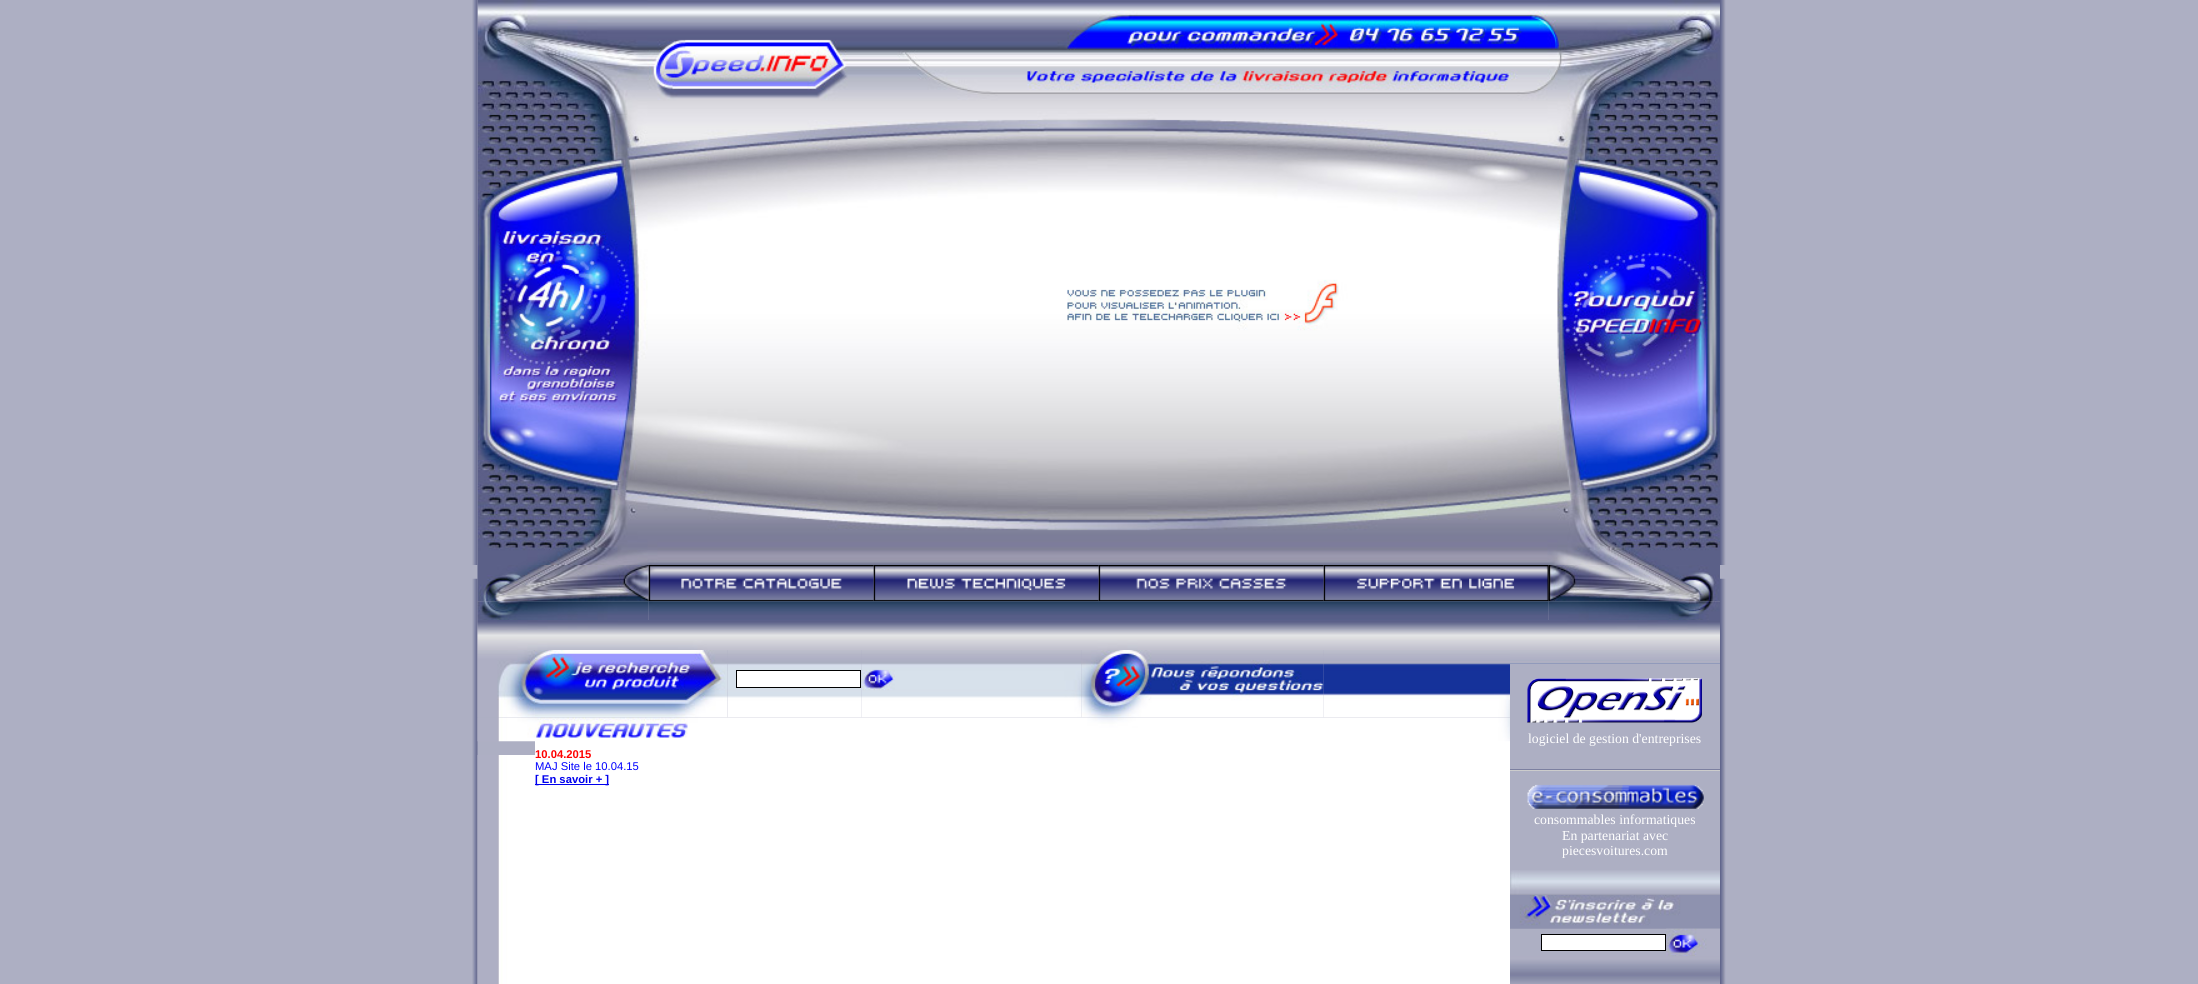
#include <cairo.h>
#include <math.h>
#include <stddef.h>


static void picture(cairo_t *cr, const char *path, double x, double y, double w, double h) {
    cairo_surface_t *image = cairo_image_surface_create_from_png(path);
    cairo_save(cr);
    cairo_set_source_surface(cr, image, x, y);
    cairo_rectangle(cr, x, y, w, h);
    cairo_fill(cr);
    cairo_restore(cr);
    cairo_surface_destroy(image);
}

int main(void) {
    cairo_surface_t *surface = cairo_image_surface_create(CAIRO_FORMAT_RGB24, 2198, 984);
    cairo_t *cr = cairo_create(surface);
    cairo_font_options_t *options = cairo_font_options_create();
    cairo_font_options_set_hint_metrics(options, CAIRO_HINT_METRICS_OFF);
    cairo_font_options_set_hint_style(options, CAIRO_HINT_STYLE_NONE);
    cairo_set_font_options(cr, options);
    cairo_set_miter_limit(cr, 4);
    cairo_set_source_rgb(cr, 0.678, 0.686, 0.765);
    cairo_paint(cr);
    picture(cr, "img2.png", 477, 0, 1243, 565);
    picture(cr, "img1.png", 472, 0, 6, 565);
    picture(cr, "img3.png", 1720, 0, 6, 565);
    picture(cr, "img4.png", 472, 578, 6, 406);
    picture(cr, "img5.png", 477, 565, 172, 37);
    picture(cr, "img6.png", 648, 565, 226, 37);
    picture(cr, "img7.png", 873, 565, 226, 37);
    picture(cr, "img8.png", 1098, 565, 226, 37);
    picture(cr, "img9.png", 1323, 565, 226, 37);
    picture(cr, "img10.png", 1548, 565, 172, 37);
    picture(cr, "img11.png", 1720, 578, 6, 406);
    picture(cr, "img12.png", 477, 601, 172, 19);
    picture(cr, "img13.png", 648, 601, 901, 19);
    picture(cr, "img14.png", 1548, 601, 172, 19);
    picture(cr, "img15.png", 477, 620, 1243, 30);
    picture(cr, "img17.png", 477, 650, 58, 68);
    picture(cr, "img19.png", 727, 650, 135, 68);
    picture(cr, "img18.png", 535, 650, 193, 68);
    picture(cr, "img20.png", 861, 650, 34, 68);
    picture(cr, "img21.png", 895, 650, 187, 68);
    picture(cr, "img22.png", 1081, 650, 243, 68);
    picture(cr, "img23.png", 1323, 650, 187, 68);
    cairo_set_source_rgb(cr, 1, 1, 1);
    cairo_rectangle(cr, 535, 741, 975, 243);
    cairo_fill(cr);
    picture(cr, "img16.png", 477, 717, 1033, 25);
    cairo_rectangle(cr, 736.5, 670.5, 124, 17);
    cairo_fill_preserve(cr);
    cairo_set_source_rgb(cr, 0, 0, 0);
    cairo_set_line_width(cr, 1);
    cairo_stroke(cr);
    picture(cr, "img24.png", 1510, 650, 210, 14);
    picture(cr, "img25.png", 1527, 678, 175, 45);
    cairo_select_font_face(cr, "Liberation Serif", CAIRO_FONT_SLANT_NORMAL, CAIRO_FONT_WEIGHT_NORMAL);
    cairo_set_font_size(cr, 13.75);
    cairo_set_source_rgb(cr, 1, 1, 1);
    cairo_move_to(cr, 1528, 743);
    cairo_show_text(cr, "logiciel de gestion d'entreprises");
    picture(cr, "img26.png", 477, 755, 58, 229);
    cairo_select_font_face(cr, "Liberation Sans", CAIRO_FONT_SLANT_NORMAL, CAIRO_FONT_WEIGHT_BOLD);
    cairo_set_font_size(cr, 11.25);
    cairo_set_source_rgb(cr, 1, 0, 0);
    cairo_move_to(cr, 535, 758);
    cairo_show_text(cr, "10.04.2015");
    cairo_select_font_face(cr, "Liberation Sans", CAIRO_FONT_SLANT_NORMAL, CAIRO_FONT_WEIGHT_NORMAL);
    cairo_set_source_rgb(cr, 0, 0, 1);
    cairo_move_to(cr, 535, 770);
    cairo_show_text(cr, "MAJ Site le 10.04.15");
    cairo_set_source_rgb(cr, 0, 0, 0.933);
    cairo_rectangle(cr, 535, 784, 74, 1);
    cairo_fill(cr);
    cairo_select_font_face(cr, "Liberation Sans", CAIRO_FONT_SLANT_NORMAL, CAIRO_FONT_WEIGHT_BOLD);
    cairo_move_to(cr, 535, 783);
    cairo_show_text(cr, "[ En savoir + ]");
    cairo_set_source_rgb(cr, 0.486, 0.502, 0.627);
    cairo_rectangle(cr, 1510, 769, 210, 1);
    cairo_fill(cr);
    cairo_set_source_rgb(cr, 0.8, 0.8, 0.8);
    cairo_rectangle(cr, 1510, 770, 210, 1);
    cairo_fill(cr);
    picture(cr, "img27.png", 1527, 784, 177, 25);
    cairo_select_font_face(cr, "Liberation Serif", CAIRO_FONT_SLANT_NORMAL, CAIRO_FONT_WEIGHT_NORMAL);
    cairo_set_font_size(cr, 13.75);
    cairo_set_source_rgb(cr, 1, 1, 1);
    cairo_move_to(cr, 1534, 824);
    cairo_show_text(cr, "consommables informatiques");
    cairo_move_to(cr, 1562, 840);
    cairo_show_text(cr, "En partenariat avec");
    cairo_move_to(cr, 1562, 855);
    cairo_show_text(cr, "piecesvoitures.com");
    picture(cr, "img28.png", 1510, 870, 210, 25);
    picture(cr, "img29.png", 1510, 895, 210, 34);
    cairo_rectangle(cr, 1541.5, 934.5, 124, 16);
    cairo_fill_preserve(cr);
    cairo_set_source_rgb(cr, 0, 0, 0);
    cairo_stroke(cr);
    picture(cr, "img30.png", 1666, 928, 54, 29);
    picture(cr, "img31.png", 1510, 956, 210, 28);
    cairo_surface_write_to_png(surface, "page.png");
    cairo_font_options_destroy(options);
    cairo_destroy(cr);
    cairo_surface_destroy(surface);
    return 0;
}
